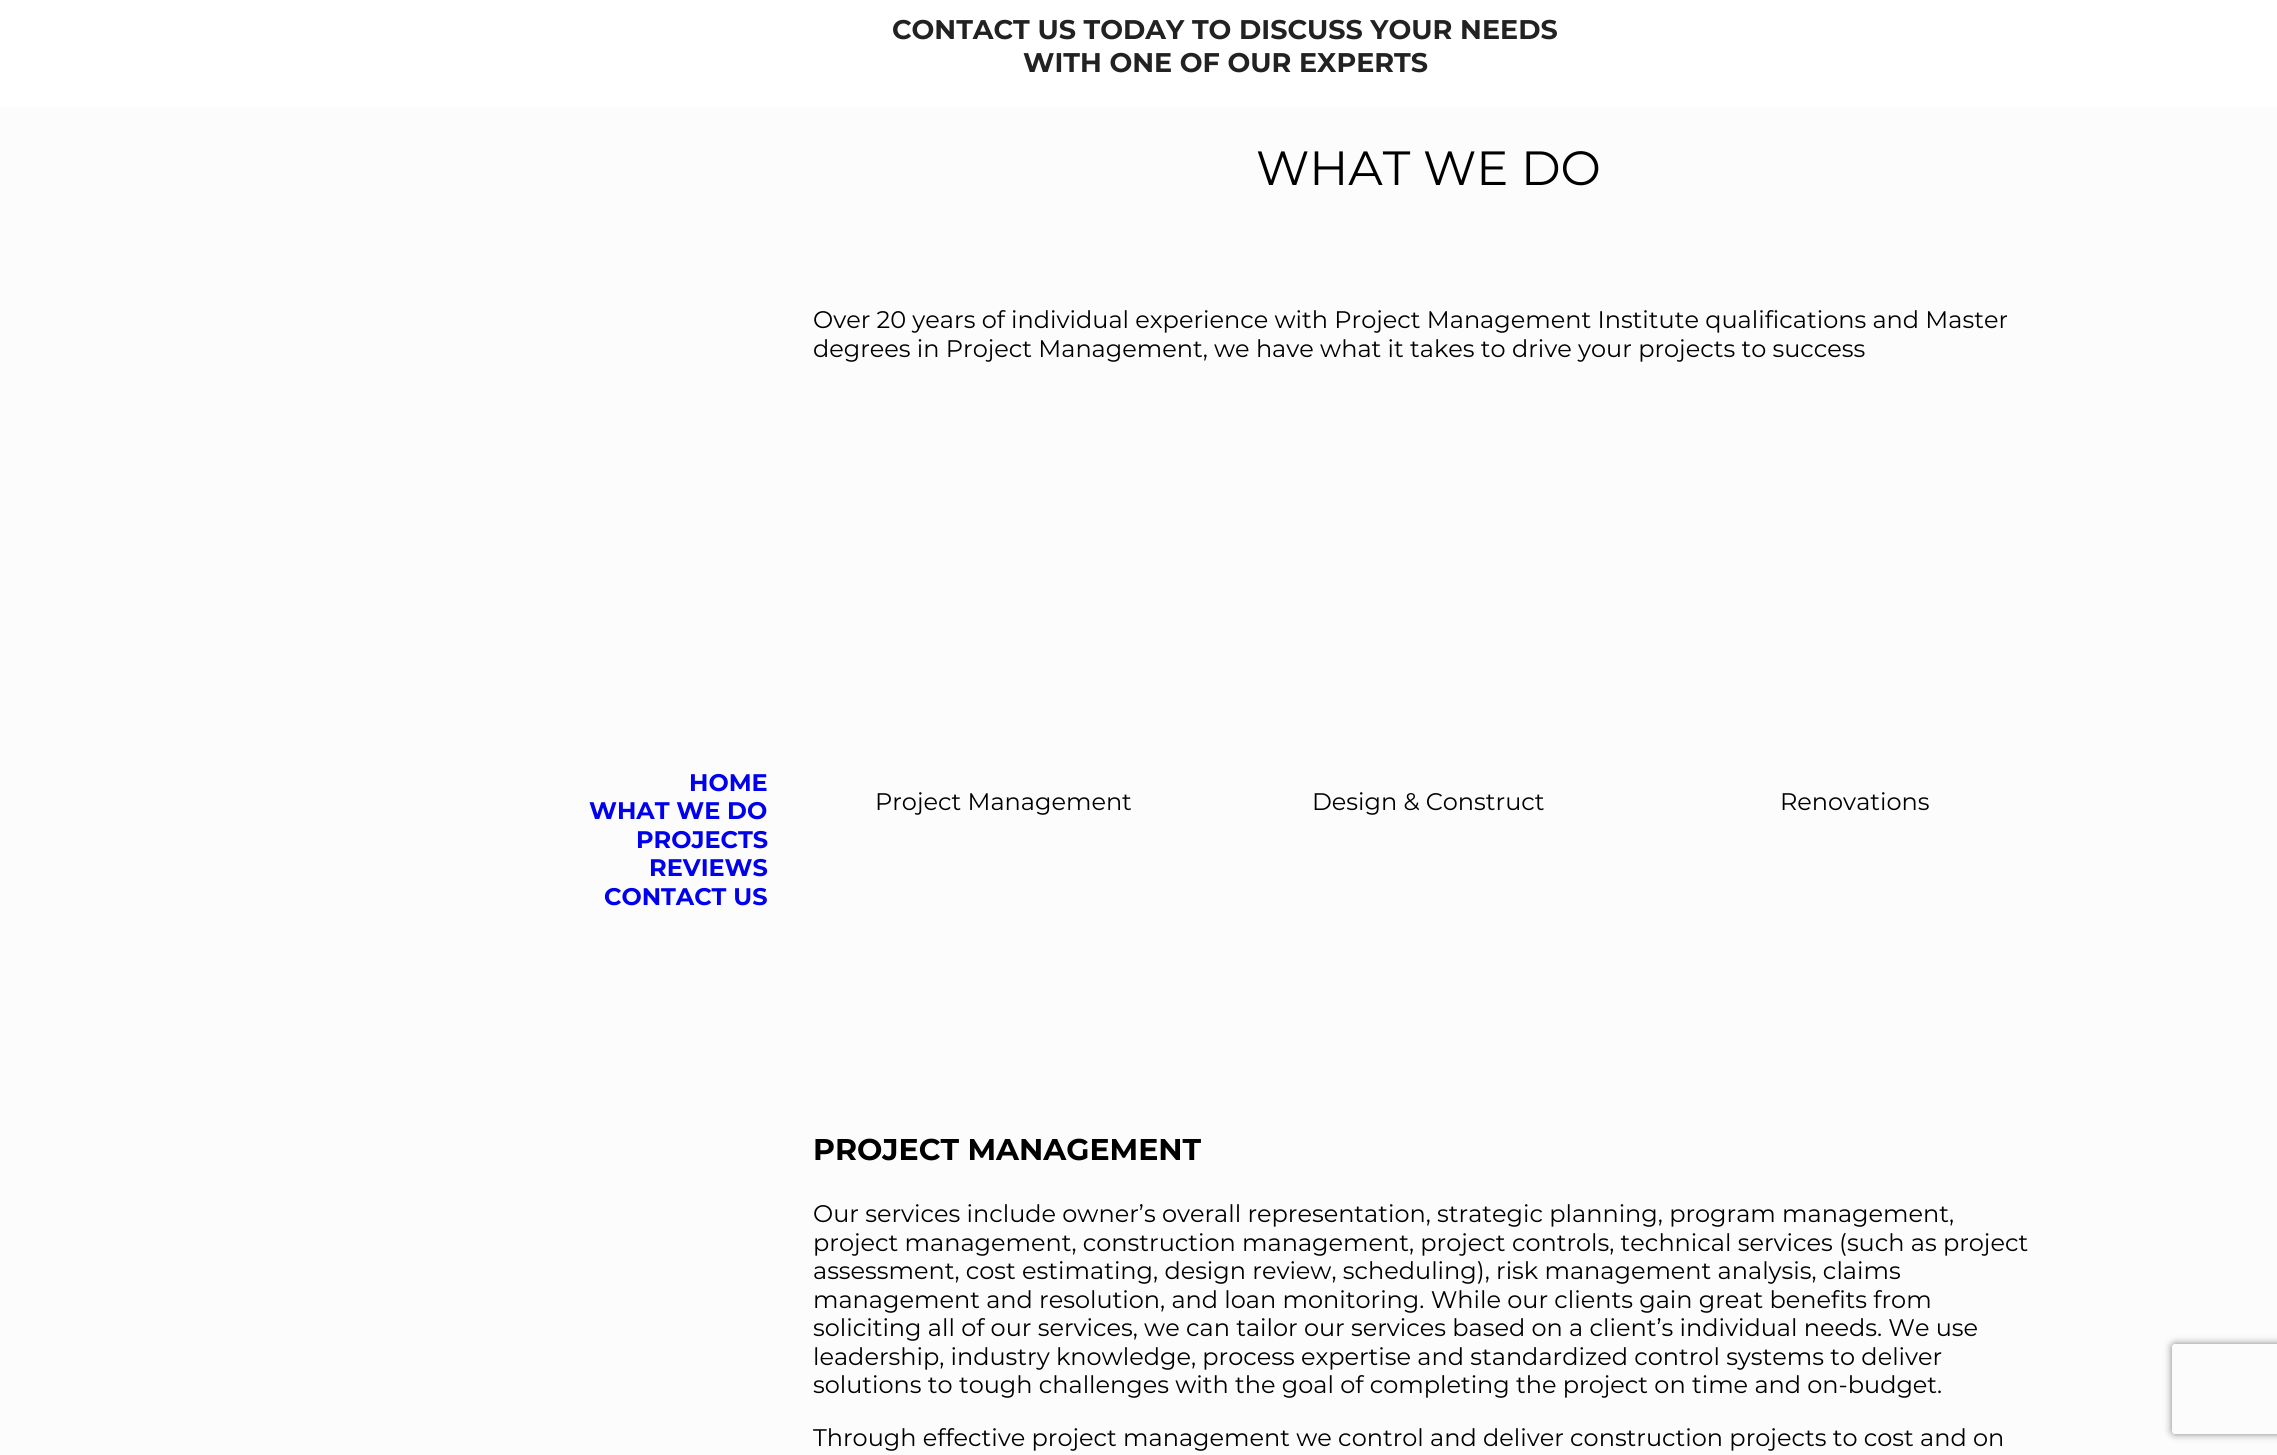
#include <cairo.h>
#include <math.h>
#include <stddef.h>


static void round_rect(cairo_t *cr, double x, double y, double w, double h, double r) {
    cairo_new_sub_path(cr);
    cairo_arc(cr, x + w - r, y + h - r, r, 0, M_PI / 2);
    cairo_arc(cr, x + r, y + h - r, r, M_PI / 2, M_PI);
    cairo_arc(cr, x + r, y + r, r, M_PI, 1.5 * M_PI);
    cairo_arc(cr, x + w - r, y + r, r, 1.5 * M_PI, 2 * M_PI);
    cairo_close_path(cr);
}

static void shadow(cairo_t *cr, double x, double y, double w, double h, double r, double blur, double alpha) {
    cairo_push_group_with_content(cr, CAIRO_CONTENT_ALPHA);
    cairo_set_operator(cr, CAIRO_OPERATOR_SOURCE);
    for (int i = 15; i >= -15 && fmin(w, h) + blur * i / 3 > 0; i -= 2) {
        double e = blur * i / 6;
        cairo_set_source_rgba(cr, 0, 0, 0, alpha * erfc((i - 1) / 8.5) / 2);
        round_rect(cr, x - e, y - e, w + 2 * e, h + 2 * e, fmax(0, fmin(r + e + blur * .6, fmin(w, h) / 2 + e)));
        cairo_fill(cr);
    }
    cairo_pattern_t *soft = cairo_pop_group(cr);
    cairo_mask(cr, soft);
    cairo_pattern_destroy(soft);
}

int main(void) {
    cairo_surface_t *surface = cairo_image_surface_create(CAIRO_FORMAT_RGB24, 2277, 1455);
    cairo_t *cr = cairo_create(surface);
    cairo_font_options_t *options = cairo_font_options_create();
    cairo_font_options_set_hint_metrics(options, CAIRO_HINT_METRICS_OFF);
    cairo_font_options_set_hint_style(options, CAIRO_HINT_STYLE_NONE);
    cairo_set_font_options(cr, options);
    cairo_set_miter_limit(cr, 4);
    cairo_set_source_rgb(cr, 0.988, 0.988, 0.988);
    cairo_paint(cr);
    cairo_set_source_rgb(cr, 1, 1, 1);
    cairo_rectangle(cr, 0, 0, 2277, 107);
    cairo_fill(cr);
    cairo_select_font_face(cr, "Montserrat", CAIRO_FONT_SLANT_NORMAL, CAIRO_FONT_WEIGHT_BOLD);
    cairo_set_font_size(cr, 27);
    cairo_set_source_rgb(cr, 0.133, 0.133, 0.133);
    cairo_move_to(cr, 892, 39);
    cairo_show_text(cr, "CONTACT US TODAY TO DISCUSS YOUR NEEDS");
    cairo_move_to(cr, 1023, 72);
    cairo_show_text(cr, "WITH ONE OF OUR EXPERTS");
    cairo_select_font_face(cr, "Montserrat Thin", CAIRO_FONT_SLANT_NORMAL, CAIRO_FONT_WEIGHT_NORMAL);
    cairo_set_font_size(cr, 48);
    cairo_set_source_rgb(cr, 0, 0, 0);
    cairo_move_to(cr, 1256, 185);
    cairo_show_text(cr, "WHAT WE DO");
    cairo_set_font_size(cr, 24);
    cairo_move_to(cr, 813, 328);
    cairo_show_text(cr, "Over 20 years of individual experience with Project Management Institute qualifications and Master");
    cairo_move_to(cr, 813, 357);
    cairo_show_text(cr, "degrees in Project Management, we have what it takes to drive your projects to success");
    cairo_move_to(cr, 875, 810);
    cairo_show_text(cr, "Project Management");
    cairo_move_to(cr, 1312, 810);
    cairo_show_text(cr, "Design & Construct");
    cairo_move_to(cr, 1780, 810);
    cairo_show_text(cr, "Renovations");
    cairo_select_font_face(cr, "Montserrat", CAIRO_FONT_SLANT_NORMAL, CAIRO_FONT_WEIGHT_BOLD);
    cairo_set_source_rgb(cr, 0, 0, 0.933);
    cairo_move_to(cr, 689, 791);
    cairo_show_text(cr, "HOME");
    cairo_move_to(cr, 589, 819);
    cairo_show_text(cr, "WHAT WE DO");
    cairo_move_to(cr, 636, 848);
    cairo_show_text(cr, "PROJECTS");
    cairo_move_to(cr, 649, 876);
    cairo_show_text(cr, "REVIEWS");
    cairo_move_to(cr, 604, 905);
    cairo_show_text(cr, "CONTACT US");
    cairo_set_font_size(cr, 30);
    cairo_set_source_rgb(cr, 0, 0, 0);
    cairo_move_to(cr, 813, 1160);
    cairo_show_text(cr, "PROJECT MANAGEMENT");
    cairo_select_font_face(cr, "Montserrat Thin", CAIRO_FONT_SLANT_NORMAL, CAIRO_FONT_WEIGHT_NORMAL);
    cairo_set_font_size(cr, 24);
    cairo_move_to(cr, 813, 1222);
    cairo_show_text(cr, "Our services include owner’s overall representation, strategic planning, program management,");
    cairo_move_to(cr, 813, 1251);
    cairo_show_text(cr, "project management, construction management, project controls, technical services (such as project");
    cairo_move_to(cr, 813, 1279);
    cairo_show_text(cr, "assessment, cost estimating, design review, scheduling), risk management analysis, claims");
    cairo_move_to(cr, 813, 1308);
    cairo_show_text(cr, "management and resolution, and loan monitoring. While our clients gain great benefits from");
    cairo_move_to(cr, 813, 1336);
    cairo_show_text(cr, "soliciting all of our services, we can tailor our services based on a client’s individual needs. We use");
    cairo_move_to(cr, 813, 1365);
    cairo_show_text(cr, "leadership, industry knowledge, process expertise and standardized control systems to deliver");
    cairo_move_to(cr, 813, 1393);
    cairo_show_text(cr, "solutions to tough challenges with the goal of completing the project on time and on-budget.");
    cairo_move_to(cr, 813, 1446);
    cairo_show_text(cr, "Through effective project management we control and deliver construction projects to cost and on");
    cairo_save(cr);
    cairo_set_fill_rule(cr, CAIRO_FILL_RULE_EVEN_ODD);
    cairo_new_path(cr);
    cairo_move_to(cr, 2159, 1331);
    cairo_line_to(cr, 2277, 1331);
    cairo_line_to(cr, 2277, 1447);
    cairo_line_to(cr, 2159, 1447);
    cairo_close_path(cr);
    cairo_move_to(cr, 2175, 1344);
    cairo_line_to(cr, 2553, 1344);
    cairo_curve_to(cr, 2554.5, 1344, 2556, 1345.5, 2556, 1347);
    cairo_line_to(cr, 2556, 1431);
    cairo_curve_to(cr, 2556, 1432.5, 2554.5, 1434, 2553, 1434);
    cairo_line_to(cr, 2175, 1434);
    cairo_curve_to(cr, 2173.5, 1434, 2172, 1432.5, 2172, 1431);
    cairo_line_to(cr, 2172, 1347);
    cairo_curve_to(cr, 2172, 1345.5, 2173.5, 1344, 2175, 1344);
    cairo_close_path(cr);
    cairo_clip(cr);
    cairo_set_source_rgb(cr, 0.502, 0.502, 0.502);
    shadow(cr, 2172, 1344, 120, 90, 3, 4, 1);
    cairo_restore(cr);
    cairo_surface_write_to_png(surface, "page.png");
    cairo_font_options_destroy(options);
    cairo_destroy(cr);
    cairo_surface_destroy(surface);
    return 0;
}
